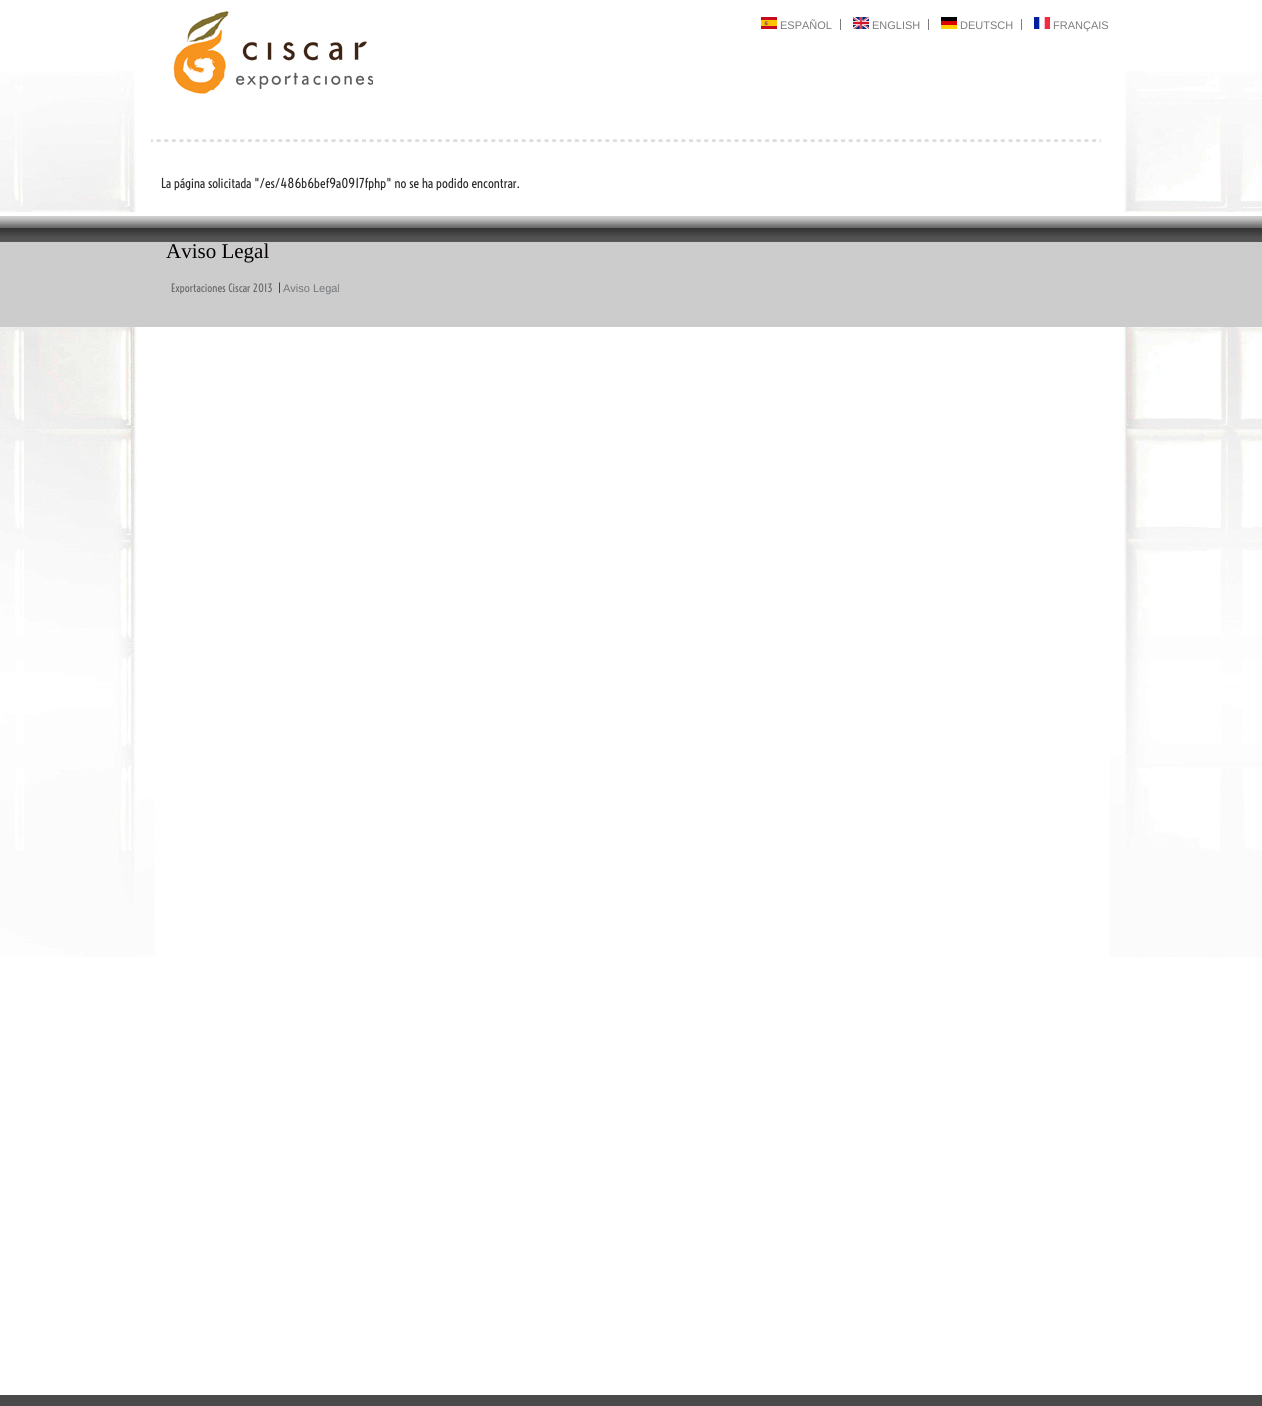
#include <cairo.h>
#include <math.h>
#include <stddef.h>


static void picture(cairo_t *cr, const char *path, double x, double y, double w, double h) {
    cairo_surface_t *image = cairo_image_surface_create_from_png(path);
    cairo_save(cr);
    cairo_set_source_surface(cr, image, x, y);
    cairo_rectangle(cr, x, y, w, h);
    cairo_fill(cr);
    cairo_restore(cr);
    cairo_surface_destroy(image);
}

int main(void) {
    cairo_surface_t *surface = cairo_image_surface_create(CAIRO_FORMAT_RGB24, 1262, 1406);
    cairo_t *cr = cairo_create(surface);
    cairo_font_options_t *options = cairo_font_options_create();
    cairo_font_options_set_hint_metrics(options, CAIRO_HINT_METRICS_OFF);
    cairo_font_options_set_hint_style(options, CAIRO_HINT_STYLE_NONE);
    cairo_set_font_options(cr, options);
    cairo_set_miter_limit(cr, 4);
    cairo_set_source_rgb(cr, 1, 1, 1);
    cairo_paint(cr);
    picture(cr, "img1.png", 0, 71, 1262, 886);
    picture(cr, "img2.png", 173, 11, 200, 83);
    picture(cr, "img3.png", 761, 17, 16, 12);
    cairo_select_font_face(cr, "Liberation Sans", CAIRO_FONT_SLANT_NORMAL, CAIRO_FONT_WEIGHT_NORMAL);
    cairo_set_font_size(cr, 11);
    cairo_set_source_rgb(cr, 0.486, 0.486, 0.486);
    cairo_move_to(cr, 780, 29);
    cairo_show_text(cr, "ESPAÑOL");
    cairo_set_source_rgb(cr, 0.486, 0.478, 0.486);
    cairo_rectangle(cr, 840, 19, 1, 11);
    cairo_fill(cr);
    picture(cr, "img4.png", 853, 17, 16, 12);
    cairo_set_source_rgb(cr, 0.486, 0.486, 0.486);
    cairo_move_to(cr, 872, 29);
    cairo_show_text(cr, "ENGLISH");
    cairo_set_source_rgb(cr, 0.486, 0.478, 0.486);
    cairo_rectangle(cr, 928, 19, 1, 11);
    cairo_fill(cr);
    picture(cr, "img5.png", 941, 17, 16, 12);
    cairo_set_source_rgb(cr, 0.486, 0.486, 0.486);
    cairo_move_to(cr, 960, 29);
    cairo_show_text(cr, "DEUTSCH");
    cairo_set_source_rgb(cr, 0.486, 0.478, 0.486);
    cairo_rectangle(cr, 1021, 19, 1, 11);
    cairo_fill(cr);
    picture(cr, "img6.png", 1034, 17, 16, 12);
    cairo_set_source_rgb(cr, 0.486, 0.486, 0.486);
    cairo_move_to(cr, 1053, 29);
    cairo_show_text(cr, "FRANÇAIS");
    picture(cr, "img7.png", 151, 139, 950, 3);
    cairo_select_font_face(cr, "Voltaire", CAIRO_FONT_SLANT_NORMAL, CAIRO_FONT_WEIGHT_NORMAL);
    cairo_set_font_size(cr, 13);
    cairo_set_source_rgb(cr, 0.169, 0.169, 0.169);
    cairo_move_to(cr, 161, 188);
    cairo_show_text(cr, "La página solicitada \"/es/486b6bef9a0917fphp\" no se ha podido encontrar.");
    picture(cr, "img8.png", 0, 216, 1262, 111);
    cairo_set_source_rgb(cr, 1, 1, 1);
    cairo_rectangle(cr, 0, 212, 1262, 4);
    cairo_fill(cr);
    cairo_select_font_face(cr, "Liberation Serif", CAIRO_FONT_SLANT_NORMAL, CAIRO_FONT_WEIGHT_NORMAL);
    cairo_set_font_size(cr, 21);
    cairo_set_source_rgb(cr, 0.016, 0, 0.012);
    cairo_move_to(cr, 166, 258);
    cairo_show_text(cr, "Aviso Legal");
    cairo_select_font_face(cr, "Voltaire", CAIRO_FONT_SLANT_NORMAL, CAIRO_FONT_WEIGHT_NORMAL);
    cairo_set_font_size(cr, 11);
    cairo_set_source_rgb(cr, 0.4, 0.4, 0.4);
    cairo_move_to(cr, 171, 292);
    cairo_show_text(cr, "Exportaciones Ciscar 2013");
    cairo_set_source_rgb(cr, 0.133, 0.133, 0.133);
    cairo_move_to(cr, 278, 292);
    cairo_show_text(cr, "|");
    cairo_select_font_face(cr, "Liberation Sans", CAIRO_FONT_SLANT_NORMAL, CAIRO_FONT_WEIGHT_NORMAL);
    cairo_set_source_rgb(cr, 0.451, 0.467, 0.478);
    cairo_move_to(cr, 283, 292);
    cairo_show_text(cr, "Aviso Legal");
    cairo_set_source_rgb(cr, 0.29, 0.29, 0.29);
    cairo_rectangle(cr, 0, 1395, 1262, 11);
    cairo_fill(cr);
    cairo_surface_write_to_png(surface, "page.png");
    cairo_font_options_destroy(options);
    cairo_destroy(cr);
    cairo_surface_destroy(surface);
    return 0;
}
